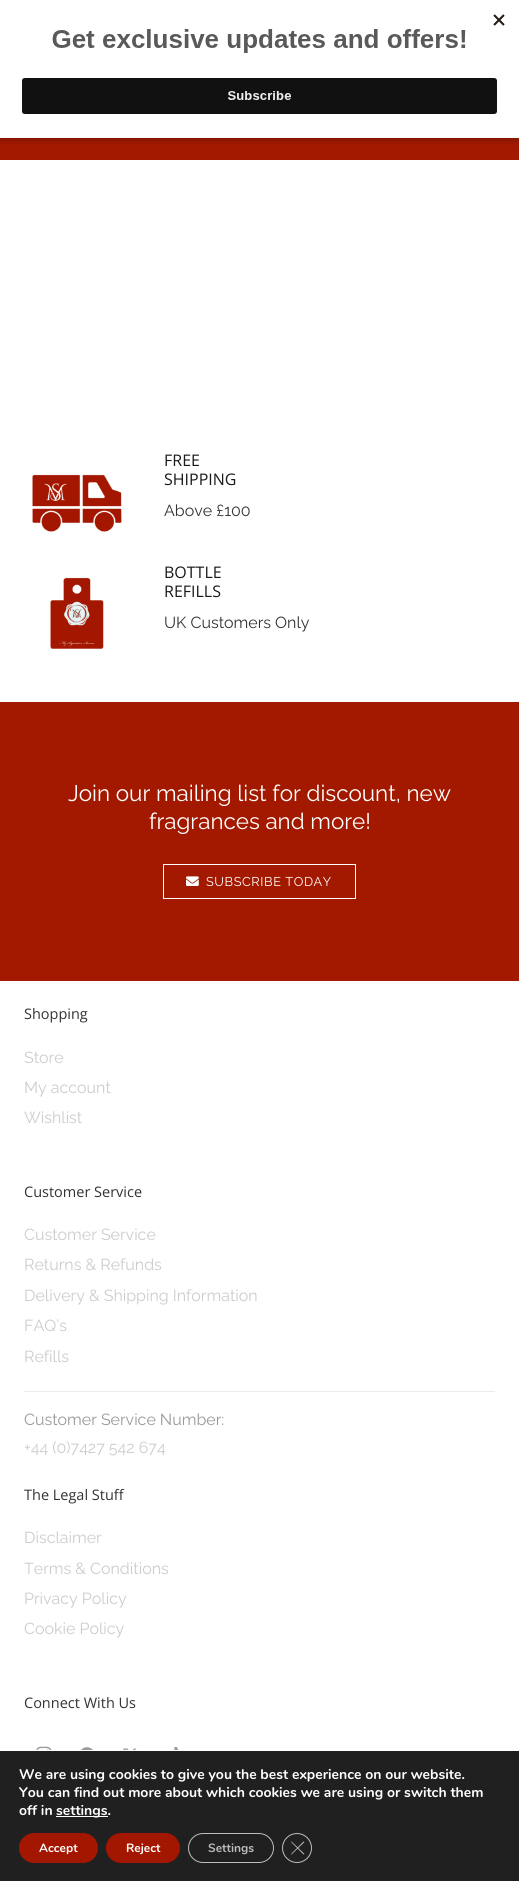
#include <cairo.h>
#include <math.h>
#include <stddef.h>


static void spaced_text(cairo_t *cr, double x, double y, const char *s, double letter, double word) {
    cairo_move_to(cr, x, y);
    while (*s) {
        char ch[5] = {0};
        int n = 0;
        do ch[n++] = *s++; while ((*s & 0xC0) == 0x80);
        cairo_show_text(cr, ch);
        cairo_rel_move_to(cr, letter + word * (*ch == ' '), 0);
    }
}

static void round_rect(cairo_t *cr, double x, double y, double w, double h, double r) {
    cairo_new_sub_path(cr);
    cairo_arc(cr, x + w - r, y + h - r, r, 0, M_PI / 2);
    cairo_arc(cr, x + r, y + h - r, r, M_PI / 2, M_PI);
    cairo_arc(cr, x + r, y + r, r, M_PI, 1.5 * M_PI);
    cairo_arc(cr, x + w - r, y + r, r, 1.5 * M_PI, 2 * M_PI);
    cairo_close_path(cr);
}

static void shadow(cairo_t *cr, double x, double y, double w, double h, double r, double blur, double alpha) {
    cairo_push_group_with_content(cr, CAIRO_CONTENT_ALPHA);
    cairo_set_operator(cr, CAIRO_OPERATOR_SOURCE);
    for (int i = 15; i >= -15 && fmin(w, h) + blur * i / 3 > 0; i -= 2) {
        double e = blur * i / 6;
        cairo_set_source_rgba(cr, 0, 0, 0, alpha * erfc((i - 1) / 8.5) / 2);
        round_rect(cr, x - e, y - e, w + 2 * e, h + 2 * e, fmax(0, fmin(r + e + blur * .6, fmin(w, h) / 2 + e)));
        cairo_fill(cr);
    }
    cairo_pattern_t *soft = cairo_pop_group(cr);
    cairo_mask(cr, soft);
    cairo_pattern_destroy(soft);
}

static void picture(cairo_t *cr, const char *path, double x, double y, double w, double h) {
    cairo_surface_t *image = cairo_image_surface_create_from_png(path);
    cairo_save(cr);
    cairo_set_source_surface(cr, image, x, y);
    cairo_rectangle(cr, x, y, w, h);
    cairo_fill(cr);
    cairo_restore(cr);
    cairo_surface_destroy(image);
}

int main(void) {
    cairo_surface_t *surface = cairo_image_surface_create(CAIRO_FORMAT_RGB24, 519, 1881);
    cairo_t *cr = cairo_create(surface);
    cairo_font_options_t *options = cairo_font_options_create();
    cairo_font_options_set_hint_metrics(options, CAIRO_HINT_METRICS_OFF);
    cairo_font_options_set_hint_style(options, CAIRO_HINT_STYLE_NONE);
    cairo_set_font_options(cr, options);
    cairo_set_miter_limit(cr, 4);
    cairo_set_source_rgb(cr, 1, 1, 1);
    cairo_paint(cr);
    cairo_set_source_rgb(cr, 0.639, 0.098, 0);
    cairo_rectangle(cr, 0, 138, 519, 22);
    cairo_fill(cr);
    cairo_set_source_rgb(cr, 0, 0, 0);
    shadow(cr, 0, 3, 519, 138, 0, 3, 0.2);
    cairo_set_source_rgb(cr, 1, 1, 1);
    cairo_rectangle(cr, 0, 0, 519, 138);
    cairo_fill(cr);
    picture(cr, "img1.png", 22, 14, 483, 100);
    picture(cr, "img2.png", 32, 474, 90, 58);
    cairo_select_font_face(cr, "Open Sans", CAIRO_FONT_SLANT_NORMAL, CAIRO_FONT_WEIGHT_NORMAL);
    cairo_set_font_size(cr, 16);
    cairo_set_source_rgb(cr, 0.102, 0.102, 0.102);
    cairo_move_to(cr, 164, 466);
    cairo_show_text(cr, "FREE");
    cairo_move_to(cr, 164, 485);
    cairo_show_text(cr, "SHIPPING");
    cairo_select_font_face(cr, "Raleway", CAIRO_FONT_SLANT_NORMAL, CAIRO_FONT_WEIGHT_NORMAL);
    cairo_set_source_rgb(cr, 0.2, 0.2, 0.2);
    cairo_move_to(cr, 164, 516);
    cairo_show_text(cr, "Above £100");
    picture(cr, "img3.png", 50, 577, 54, 72);
    cairo_select_font_face(cr, "Open Sans", CAIRO_FONT_SLANT_NORMAL, CAIRO_FONT_WEIGHT_NORMAL);
    cairo_set_source_rgb(cr, 0.102, 0.102, 0.102);
    cairo_move_to(cr, 164, 578);
    cairo_show_text(cr, "BOTTLE");
    cairo_move_to(cr, 164, 597);
    cairo_show_text(cr, "REFILLS");
    cairo_select_font_face(cr, "Raleway", CAIRO_FONT_SLANT_NORMAL, CAIRO_FONT_WEIGHT_NORMAL);
    cairo_set_source_rgb(cr, 0.2, 0.2, 0.2);
    cairo_move_to(cr, 164, 628);
    cairo_show_text(cr, "UK Customers Only");
    cairo_set_source_rgb(cr, 0.639, 0.098, 0);
    cairo_rectangle(cr, 0, 702, 519, 279);
    cairo_fill(cr);
    cairo_set_font_size(cr, 22.4);
    cairo_set_source_rgb(cr, 1, 1, 1);
    cairo_move_to(cr, 68, 801);
    cairo_show_text(cr, "Join our mailing list for discount, new");
    cairo_move_to(cr, 149, 829);
    cairo_show_text(cr, "fragrances and more!");
    picture(cr, "img4.png", 186, 876, 13, 10);
    cairo_rectangle(cr, 163.5, 864.5, 192, 34);
    cairo_set_line_width(cr, 1);
    cairo_stroke(cr);
    cairo_set_font_size(cr, 12.75);
    spaced_text(cr, 206, 886, "SUBSCRIBE TODAY", 0.6, 0);
    cairo_select_font_face(cr, "Open Sans", CAIRO_FONT_SLANT_NORMAL, CAIRO_FONT_WEIGHT_NORMAL);
    cairo_set_font_size(cr, 14.5);
    cairo_set_source_rgb(cr, 0.2, 0.2, 0.2);
    cairo_move_to(cr, 24, 1019);
    cairo_show_text(cr, "Shopping");
    cairo_select_font_face(cr, "Raleway", CAIRO_FONT_SLANT_NORMAL, CAIRO_FONT_WEIGHT_NORMAL);
    cairo_set_font_size(cr, 16);
    cairo_set_source_rgb(cr, 0.8, 0.8, 0.8);
    cairo_move_to(cr, 24, 1063);
    cairo_show_text(cr, "Store");
    cairo_move_to(cr, 24, 1093);
    cairo_show_text(cr, "My account");
    cairo_move_to(cr, 24, 1123);
    cairo_show_text(cr, "Wishlist");
    cairo_select_font_face(cr, "Open Sans", CAIRO_FONT_SLANT_NORMAL, CAIRO_FONT_WEIGHT_NORMAL);
    cairo_set_font_size(cr, 14.5);
    cairo_set_source_rgb(cr, 0.2, 0.2, 0.2);
    cairo_move_to(cr, 24, 1197);
    cairo_show_text(cr, "Customer Service");
    cairo_select_font_face(cr, "Raleway", CAIRO_FONT_SLANT_NORMAL, CAIRO_FONT_WEIGHT_NORMAL);
    cairo_set_font_size(cr, 16);
    cairo_set_source_rgb(cr, 0.8, 0.8, 0.8);
    cairo_move_to(cr, 24, 1240);
    cairo_show_text(cr, "Customer Service");
    cairo_move_to(cr, 24, 1270);
    cairo_show_text(cr, "Returns & Refunds");
    cairo_move_to(cr, 24, 1301);
    cairo_show_text(cr, "Delivery & Shipping Information");
    cairo_move_to(cr, 24, 1331);
    cairo_show_text(cr, "FAQ’s");
    cairo_move_to(cr, 24, 1362);
    cairo_show_text(cr, "Refills");
    cairo_set_source_rgb(cr, 0.918, 0.918, 0.918);
    cairo_rectangle(cr, 24, 1391, 471, 1);
    cairo_fill(cr);
    cairo_set_source_rgb(cr, 0.6, 0.6, 0.6);
    cairo_move_to(cr, 24, 1425);
    cairo_show_text(cr, "Customer Service Number:");
    cairo_set_source_rgb(cr, 0.8, 0.8, 0.8);
    cairo_move_to(cr, 24, 1453);
    cairo_show_text(cr, "+44 (0)7427 542 674");
    cairo_select_font_face(cr, "Open Sans", CAIRO_FONT_SLANT_NORMAL, CAIRO_FONT_WEIGHT_NORMAL);
    cairo_set_font_size(cr, 14.5);
    cairo_set_source_rgb(cr, 0.2, 0.2, 0.2);
    cairo_move_to(cr, 24, 1500);
    cairo_show_text(cr, "The Legal Stuff");
    cairo_select_font_face(cr, "Raleway", CAIRO_FONT_SLANT_NORMAL, CAIRO_FONT_WEIGHT_NORMAL);
    cairo_set_font_size(cr, 16);
    cairo_set_source_rgb(cr, 0.8, 0.8, 0.8);
    cairo_move_to(cr, 24, 1543);
    cairo_show_text(cr, "Disclaimer");
    cairo_move_to(cr, 24, 1574);
    cairo_show_text(cr, "Terms & Conditions");
    cairo_move_to(cr, 24, 1604);
    cairo_show_text(cr, "Privacy Policy");
    cairo_move_to(cr, 24, 1634);
    cairo_show_text(cr, "Cookie Policy");
    cairo_select_font_face(cr, "Open Sans", CAIRO_FONT_SLANT_NORMAL, CAIRO_FONT_WEIGHT_NORMAL);
    cairo_set_font_size(cr, 14.5);
    cairo_set_source_rgb(cr, 0.2, 0.2, 0.2);
    cairo_move_to(cr, 24, 1708);
    cairo_show_text(cr, "Connect With Us");
    picture(cr, "img5.png", 36, 1746, 16, 4);
    picture(cr, "img6.png", 81, 1747, 12, 3);
    picture(cr, "img7.png", 123, 1748, 14, 2);
    picture(cr, "img8.png", 174, 1747, 5, 3);
    cairo_set_source_rgb(cr, 0.125, 0.125, 0.125);
    cairo_rectangle(cr, 0, 1751, 519, 130);
    cairo_fill(cr);
    cairo_select_font_face(cr, "Nunito", CAIRO_FONT_SLANT_NORMAL, CAIRO_FONT_WEIGHT_BOLD);
    cairo_set_font_size(cr, 14);
    cairo_set_source_rgb(cr, 1, 1, 1);
    cairo_move_to(cr, 19, 1779);
    cairo_show_text(cr, "We are using cookies to give you the best experience on our website.");
    cairo_move_to(cr, 19, 1797);
    cairo_show_text(cr, "You can find out more about which cookies we are using or switch them");
    cairo_move_to(cr, 19, 1815);
    cairo_show_text(cr, "off in");
    cairo_rectangle(cr, 56, 1816, 52, 1);
    cairo_fill(cr);
    cairo_move_to(cr, 56, 1815);
    cairo_show_text(cr, "settings.");
    cairo_set_source_rgb(cr, 0.639, 0.086, 0);
    round_rect(cr, 19, 1833, 79, 30, 15);
    cairo_fill(cr);
    cairo_set_font_size(cr, 12);
    cairo_set_source_rgb(cr, 1, 1, 1);
    cairo_move_to(cr, 39, 1852);
    cairo_show_text(cr, "Accept");
    cairo_set_source_rgb(cr, 0.639, 0.086, 0);
    round_rect(cr, 106, 1833, 74, 30, 15);
    cairo_fill(cr);
    cairo_set_source_rgb(cr, 1, 1, 1);
    cairo_move_to(cr, 126, 1852);
    cairo_show_text(cr, "Reject");
    round_rect(cr, 188.5, 1833.5, 85, 29, 14.5);
    cairo_set_source_rgb(cr, 0.737, 0.737, 0.737);
    cairo_stroke(cr);
    cairo_move_to(cr, 208, 1852);
    cairo_show_text(cr, "Settings");
    cairo_new_path(cr);
    cairo_arc(cr, 297, 1848, 14.5, 0, 2 * M_PI);
    cairo_stroke(cr);
    cairo_new_path(cr);
    cairo_move_to(cr, 303.5, 1841.5);
    cairo_line_to(cr, 304.5, 1842);
    cairo_line_to(cr, 291.5, 1854.5);
    cairo_line_to(cr, 291, 1854);
    cairo_close_path(cr);
    cairo_fill(cr);
    cairo_new_path(cr);
    cairo_move_to(cr, 291, 1842);
    cairo_line_to(cr, 291.5, 1841.5);
    cairo_line_to(cr, 304.5, 1854);
    cairo_line_to(cr, 303.5, 1854.5);
    cairo_close_path(cr);
    cairo_fill(cr);
    cairo_surface_write_to_png(surface, "page.png");
    cairo_font_options_destroy(options);
    cairo_destroy(cr);
    cairo_surface_destroy(surface);
    return 0;
}
